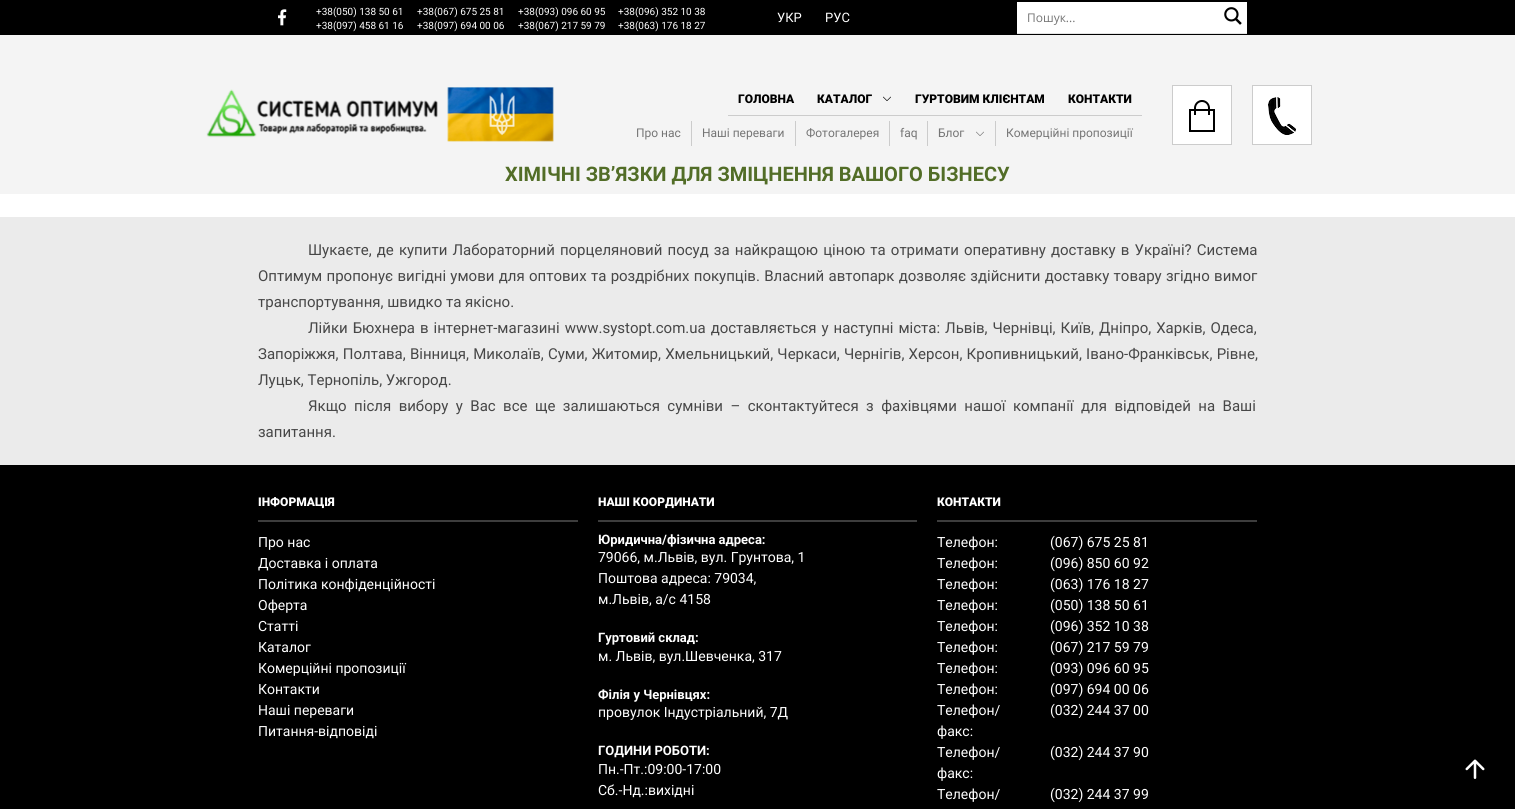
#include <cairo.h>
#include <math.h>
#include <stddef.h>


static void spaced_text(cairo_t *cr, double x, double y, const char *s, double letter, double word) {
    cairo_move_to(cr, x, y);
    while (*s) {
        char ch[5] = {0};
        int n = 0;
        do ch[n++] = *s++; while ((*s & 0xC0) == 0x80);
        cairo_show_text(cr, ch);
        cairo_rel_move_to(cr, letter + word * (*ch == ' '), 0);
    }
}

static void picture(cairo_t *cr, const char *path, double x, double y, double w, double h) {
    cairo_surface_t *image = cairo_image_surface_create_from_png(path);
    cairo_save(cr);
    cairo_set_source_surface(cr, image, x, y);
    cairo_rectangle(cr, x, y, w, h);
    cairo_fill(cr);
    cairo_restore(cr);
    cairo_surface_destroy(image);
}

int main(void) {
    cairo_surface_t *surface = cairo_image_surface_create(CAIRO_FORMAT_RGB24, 1515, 809);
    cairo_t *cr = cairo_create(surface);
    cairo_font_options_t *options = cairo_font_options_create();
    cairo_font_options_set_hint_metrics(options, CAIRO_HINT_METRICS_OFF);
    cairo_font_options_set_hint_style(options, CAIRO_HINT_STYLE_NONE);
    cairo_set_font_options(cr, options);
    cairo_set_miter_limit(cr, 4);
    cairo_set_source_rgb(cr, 1, 1, 1);
    cairo_paint(cr);
    cairo_set_source_rgb(cr, 0, 0, 0);
    cairo_rectangle(cr, 0, 0, 1515, 35);
    cairo_fill(cr);
    picture(cr, "img1.png", 278, 9, 9, 17);
    cairo_select_font_face(cr, "Roboto", CAIRO_FONT_SLANT_NORMAL, CAIRO_FONT_WEIGHT_NORMAL);
    cairo_set_font_size(cr, 10);
    cairo_set_source_rgb(cr, 1, 1, 1);
    cairo_move_to(cr, 316, 15);
    cairo_show_text(cr, "+38(050) 138 50 61");
    cairo_move_to(cr, 417, 15);
    cairo_show_text(cr, "+38(067) 675 25 81");
    cairo_move_to(cr, 518, 15);
    cairo_show_text(cr, "+38(093) 096 60 95");
    cairo_move_to(cr, 618, 15);
    cairo_show_text(cr, "+38(096) 352 10 38");
    cairo_move_to(cr, 316, 29);
    cairo_show_text(cr, "+38(097) 458 61 16");
    cairo_move_to(cr, 417, 29);
    cairo_show_text(cr, "+38(097) 694 00 06");
    cairo_move_to(cr, 518, 29);
    cairo_show_text(cr, "+38(067) 217 59 79");
    cairo_move_to(cr, 618, 29);
    cairo_show_text(cr, "+38(063) 176 18 27");
    cairo_set_font_size(cr, 13);
    cairo_move_to(cr, 777, 22);
    cairo_show_text(cr, "УКР");
    cairo_move_to(cr, 825, 22);
    cairo_show_text(cr, "РУС");
    cairo_set_source_rgb(cr, 0.894, 0.894, 0.894);
    cairo_rectangle(cr, 1017, 33, 230, 1);
    cairo_fill(cr);
    cairo_set_source_rgb(cr, 1, 1, 1);
    cairo_rectangle(cr, 1017, 2, 230, 31);
    cairo_fill(cr);
    cairo_select_font_face(cr, "Open Sans", CAIRO_FONT_SLANT_NORMAL, CAIRO_FONT_WEIGHT_NORMAL);
    cairo_set_font_size(cr, 12);
    cairo_set_source_rgb(cr, 0.459, 0.459, 0.459);
    cairo_move_to(cr, 1027, 22);
    cairo_show_text(cr, "Пошук...");
    picture(cr, "img2.png", 1224, 7, 18, 18);
    cairo_set_source_rgb(cr, 0.957, 0.957, 0.957);
    cairo_rectangle(cr, 0, 35, 1515, 159);
    cairo_fill(cr);
    picture(cr, "img3.png", 206, 87, 348, 55);
    cairo_set_source_rgb(cr, 0.8, 0.8, 0.8);
    cairo_rectangle(cr, 728, 115, 414, 1);
    cairo_fill(cr);
    cairo_select_font_face(cr, "Roboto Black", CAIRO_FONT_SLANT_NORMAL, CAIRO_FONT_WEIGHT_NORMAL);
    cairo_set_source_rgb(cr, 0, 0, 0);
    cairo_move_to(cr, 738, 103);
    cairo_show_text(cr, "ГОЛОВНА");
    cairo_move_to(cr, 817, 103);
    cairo_show_text(cr, "КАТАЛОГ");
    picture(cr, "img4.png", 883, 96, 8, 5);
    cairo_move_to(cr, 915, 103);
    cairo_show_text(cr, "ГУРТОВИМ КЛІЄНТАМ");
    cairo_move_to(cr, 1068, 103);
    cairo_show_text(cr, "КОНТАКТИ");
    cairo_select_font_face(cr, "Roboto", CAIRO_FONT_SLANT_NORMAL, CAIRO_FONT_WEIGHT_NORMAL);
    cairo_set_source_rgb(cr, 0.459, 0.459, 0.459);
    cairo_move_to(cr, 636, 137);
    cairo_show_text(cr, "Про нас");
    cairo_set_source_rgb(cr, 0.8, 0.8, 0.8);
    cairo_rectangle(cr, 691, 121, 1, 25);
    cairo_fill(cr);
    cairo_set_source_rgb(cr, 0.459, 0.459, 0.459);
    cairo_move_to(cr, 702, 137);
    cairo_show_text(cr, "Наші переваги");
    cairo_set_source_rgb(cr, 0.8, 0.8, 0.8);
    cairo_rectangle(cr, 795, 121, 1, 25);
    cairo_fill(cr);
    cairo_set_source_rgb(cr, 0.459, 0.459, 0.459);
    cairo_move_to(cr, 806, 137);
    cairo_show_text(cr, "Фотогалерея");
    cairo_set_source_rgb(cr, 0.8, 0.8, 0.8);
    cairo_rectangle(cr, 889, 121, 1, 25);
    cairo_fill(cr);
    cairo_set_source_rgb(cr, 0.459, 0.459, 0.459);
    cairo_move_to(cr, 900, 137);
    cairo_show_text(cr, "faq");
    cairo_set_source_rgb(cr, 0.8, 0.8, 0.8);
    cairo_rectangle(cr, 927, 121, 1, 25);
    cairo_fill(cr);
    cairo_set_source_rgb(cr, 0.459, 0.459, 0.459);
    cairo_move_to(cr, 938, 137);
    cairo_show_text(cr, "Блог");
    picture(cr, "img5.png", 976, 131, 8, 5);
    cairo_set_source_rgb(cr, 0.8, 0.8, 0.8);
    cairo_rectangle(cr, 995, 121, 1, 25);
    cairo_fill(cr);
    cairo_set_source_rgb(cr, 0.459, 0.459, 0.459);
    cairo_move_to(cr, 1006, 137);
    cairo_show_text(cr, "Комерційні пропозиції");
    cairo_set_source_rgb(cr, 1, 1, 1);
    cairo_rectangle(cr, 1172.5, 85.5, 59, 59);
    cairo_fill_preserve(cr);
    cairo_set_source_rgb(cr, 0.8, 0.8, 0.8);
    cairo_set_line_width(cr, 1);
    cairo_stroke(cr);
    picture(cr, "img6.png", 1189, 100, 26, 32);
    cairo_set_source_rgb(cr, 1, 1, 1);
    cairo_rectangle(cr, 1252.5, 85.5, 59, 59);
    cairo_fill_preserve(cr);
    cairo_set_source_rgb(cr, 0.8, 0.8, 0.8);
    cairo_stroke(cr);
    picture(cr, "img7.png", 1268, 97, 28, 38);
    cairo_select_font_face(cr, "Roboto", CAIRO_FONT_SLANT_NORMAL, CAIRO_FONT_WEIGHT_BOLD);
    cairo_set_font_size(cr, 20);
    cairo_set_source_rgb(cr, 0.322, 0.427, 0.153);
    cairo_move_to(cr, 505, 181);
    cairo_show_text(cr, "ХІМІЧНІ ЗВ’ЯЗКИ ДЛЯ ЗМІЦНЕННЯ ВАШОГО БІЗНЕСУ");
    cairo_set_source_rgb(cr, 0.918, 0.918, 0.918);
    cairo_rectangle(cr, 0, 217, 1515, 248);
    cairo_fill(cr);
    cairo_select_font_face(cr, "Roboto", CAIRO_FONT_SLANT_NORMAL, CAIRO_FONT_WEIGHT_NORMAL);
    cairo_set_font_size(cr, 15);
    cairo_set_source_rgb(cr, 0.278, 0.278, 0.278);
    spaced_text(cr, 308, 255, "Шукаєте, де купити Лабораторний порцеляновий посуд за найкращою ціною та отримати оперативну доставку в Україні? Система", 0, 1.4);
    spaced_text(cr, 258, 281, "Оптимум пропонує вигідні умови для оптових та роздрібних покупців. Власний автопарк дозволяє здійснити доставку товару згідно вимог", 0, 0.6);
    cairo_move_to(cr, 258, 307);
    cairo_show_text(cr, "транспортування, швидко та якісно.");
    spaced_text(cr, 308, 333, "Лійки Бюхнера в інтернет-магазині www.systopt.com.ua доставляється у наступні міста: Львів, Чернівці, Київ, Дніпро, Харків, Одеса,", 0, 1.25);
    spaced_text(cr, 258, 359, "Запоріжжя, Полтава, Вінниця, Миколаїв, Суми, Житомир, Хмельницький, Черкаси, Чернігів, Херсон, Кропивницький, Івано-Франківськ, Рівне,", 0, 0.5);
    cairo_move_to(cr, 258, 385);
    cairo_show_text(cr, "Луцьк, Тернопіль, Ужгород.");
    spaced_text(cr, 308, 411, "Якщо після вибору у Вас все ще залишаються сумніви – сконтактуйтеся з фахівцями нашої компанії для відповідей на Ваші", 0, 3.75);
    cairo_move_to(cr, 258, 437);
    cairo_show_text(cr, "запитання.");
    cairo_set_source_rgb(cr, 0, 0, 0);
    cairo_rectangle(cr, 0, 465, 1515, 344);
    cairo_fill(cr);
    picture(cr, "img8.png", 1465, 759, 20, 20);
    cairo_set_source_rgb(cr, 0.239, 0.239, 0.239);
    cairo_rectangle(cr, 258, 520, 320, 2);
    cairo_fill(cr);
    cairo_select_font_face(cr, "Roboto Black", CAIRO_FONT_SLANT_NORMAL, CAIRO_FONT_WEIGHT_NORMAL);
    cairo_set_font_size(cr, 12);
    cairo_set_source_rgb(cr, 1, 1, 1);
    cairo_move_to(cr, 258, 506);
    cairo_show_text(cr, "ІНФОРМАЦІЯ");
    cairo_select_font_face(cr, "Roboto", CAIRO_FONT_SLANT_NORMAL, CAIRO_FONT_WEIGHT_NORMAL);
    cairo_set_font_size(cr, 14);
    cairo_move_to(cr, 258, 547);
    cairo_show_text(cr, "Про нас");
    cairo_move_to(cr, 258, 568);
    cairo_show_text(cr, "Доставка і оплата");
    cairo_move_to(cr, 258, 589);
    cairo_show_text(cr, "Політика конфіденційності");
    cairo_move_to(cr, 258, 610);
    cairo_show_text(cr, "Оферта");
    cairo_move_to(cr, 258, 631);
    cairo_show_text(cr, "Статті");
    cairo_move_to(cr, 258, 652);
    cairo_show_text(cr, "Каталог");
    cairo_move_to(cr, 258, 673);
    cairo_show_text(cr, "Комерційні пропозиції");
    cairo_move_to(cr, 258, 694);
    cairo_show_text(cr, "Контакти");
    cairo_move_to(cr, 258, 715);
    cairo_show_text(cr, "Наші переваги");
    cairo_move_to(cr, 258, 736);
    cairo_show_text(cr, "Питання-відповіді");
    cairo_set_source_rgb(cr, 0.239, 0.239, 0.239);
    cairo_rectangle(cr, 598, 520, 319, 2);
    cairo_fill(cr);
    cairo_select_font_face(cr, "Roboto Black", CAIRO_FONT_SLANT_NORMAL, CAIRO_FONT_WEIGHT_NORMAL);
    cairo_set_font_size(cr, 12);
    cairo_set_source_rgb(cr, 1, 1, 1);
    cairo_move_to(cr, 598, 506);
    cairo_show_text(cr, "НАШІ КООРДИНАТИ");
    cairo_select_font_face(cr, "Roboto", CAIRO_FONT_SLANT_NORMAL, CAIRO_FONT_WEIGHT_BOLD);
    cairo_set_font_size(cr, 13);
    cairo_move_to(cr, 598, 544);
    cairo_show_text(cr, "Юридична/фізична адреса:");
    cairo_select_font_face(cr, "Roboto", CAIRO_FONT_SLANT_NORMAL, CAIRO_FONT_WEIGHT_NORMAL);
    cairo_set_font_size(cr, 14);
    cairo_move_to(cr, 598, 562);
    cairo_show_text(cr, "79066, м.Львів, вул. Грунтова, 1");
    cairo_move_to(cr, 598, 583);
    cairo_show_text(cr, "Поштова адреса: 79034,");
    cairo_move_to(cr, 598, 604);
    cairo_show_text(cr, "м.Львів, а/с 4158");
    cairo_select_font_face(cr, "Roboto", CAIRO_FONT_SLANT_NORMAL, CAIRO_FONT_WEIGHT_BOLD);
    cairo_set_font_size(cr, 13);
    cairo_move_to(cr, 598, 642);
    cairo_show_text(cr, "Гуртовий склад:");
    cairo_select_font_face(cr, "Roboto", CAIRO_FONT_SLANT_NORMAL, CAIRO_FONT_WEIGHT_NORMAL);
    cairo_set_font_size(cr, 14);
    cairo_move_to(cr, 598, 661);
    cairo_show_text(cr, "м. Львів, вул.Шевченка, 317");
    cairo_select_font_face(cr, "Roboto", CAIRO_FONT_SLANT_NORMAL, CAIRO_FONT_WEIGHT_BOLD);
    cairo_set_font_size(cr, 13);
    cairo_move_to(cr, 598, 699);
    cairo_show_text(cr, "Філія у Чернівцях:");
    cairo_select_font_face(cr, "Roboto", CAIRO_FONT_SLANT_NORMAL, CAIRO_FONT_WEIGHT_NORMAL);
    cairo_set_font_size(cr, 14);
    cairo_move_to(cr, 598, 717);
    cairo_show_text(cr, "провулок Індустріальний, 7Д");
    cairo_select_font_face(cr, "Roboto", CAIRO_FONT_SLANT_NORMAL, CAIRO_FONT_WEIGHT_BOLD);
    cairo_set_font_size(cr, 13);
    cairo_move_to(cr, 598, 755);
    cairo_show_text(cr, "ГОДИНИ РОБОТИ:");
    cairo_select_font_face(cr, "Roboto", CAIRO_FONT_SLANT_NORMAL, CAIRO_FONT_WEIGHT_NORMAL);
    cairo_set_font_size(cr, 14);
    cairo_move_to(cr, 598, 774);
    cairo_show_text(cr, "Пн.-Пт.:09:00-17:00");
    cairo_move_to(cr, 598, 795);
    cairo_show_text(cr, "Сб.-Нд.:вихідні");
    cairo_set_source_rgb(cr, 0.239, 0.239, 0.239);
    cairo_rectangle(cr, 937, 520, 320, 2);
    cairo_fill(cr);
    cairo_select_font_face(cr, "Roboto Black", CAIRO_FONT_SLANT_NORMAL, CAIRO_FONT_WEIGHT_NORMAL);
    cairo_set_font_size(cr, 12);
    cairo_set_source_rgb(cr, 1, 1, 1);
    cairo_move_to(cr, 937, 506);
    cairo_show_text(cr, "КОНТАКТИ");
    cairo_select_font_face(cr, "Roboto", CAIRO_FONT_SLANT_NORMAL, CAIRO_FONT_WEIGHT_NORMAL);
    cairo_set_font_size(cr, 14);
    cairo_move_to(cr, 937, 547);
    cairo_show_text(cr, "Телефон:");
    cairo_move_to(cr, 1050, 547);
    cairo_show_text(cr, "(067) 675 25 81");
    cairo_move_to(cr, 937, 568);
    cairo_show_text(cr, "Телефон:");
    cairo_move_to(cr, 1050, 568);
    cairo_show_text(cr, "(096) 850 60 92");
    cairo_move_to(cr, 937, 589);
    cairo_show_text(cr, "Телефон:");
    cairo_move_to(cr, 1050, 589);
    cairo_show_text(cr, "(063) 176 18 27");
    cairo_move_to(cr, 937, 610);
    cairo_show_text(cr, "Телефон:");
    cairo_move_to(cr, 1050, 610);
    cairo_show_text(cr, "(050) 138 50 61");
    cairo_move_to(cr, 937, 631);
    cairo_show_text(cr, "Телефон:");
    cairo_move_to(cr, 1050, 631);
    cairo_show_text(cr, "(096) 352 10 38");
    cairo_move_to(cr, 937, 652);
    cairo_show_text(cr, "Телефон:");
    cairo_move_to(cr, 1050, 652);
    cairo_show_text(cr, "(067) 217 59 79");
    cairo_move_to(cr, 937, 673);
    cairo_show_text(cr, "Телефон:");
    cairo_move_to(cr, 1050, 673);
    cairo_show_text(cr, "(093) 096 60 95");
    cairo_move_to(cr, 937, 694);
    cairo_show_text(cr, "Телефон:");
    cairo_move_to(cr, 1050, 694);
    cairo_show_text(cr, "(097) 694 00 06");
    cairo_move_to(cr, 937, 715);
    cairo_show_text(cr, "Телефон/");
    cairo_move_to(cr, 937, 736);
    cairo_show_text(cr, "факс:");
    cairo_move_to(cr, 1050, 715);
    cairo_show_text(cr, "(032) 244 37 00");
    cairo_move_to(cr, 937, 757);
    cairo_show_text(cr, "Телефон/");
    cairo_move_to(cr, 937, 778);
    cairo_show_text(cr, "факс:");
    cairo_move_to(cr, 1050, 757);
    cairo_show_text(cr, "(032) 244 37 90");
    cairo_move_to(cr, 937, 799);
    cairo_show_text(cr, "Телефон/");
    cairo_move_to(cr, 1050, 799);
    cairo_show_text(cr, "(032) 244 37 99");
    cairo_surface_write_to_png(surface, "page.png");
    cairo_font_options_destroy(options);
    cairo_destroy(cr);
    cairo_surface_destroy(surface);
    return 0;
}
